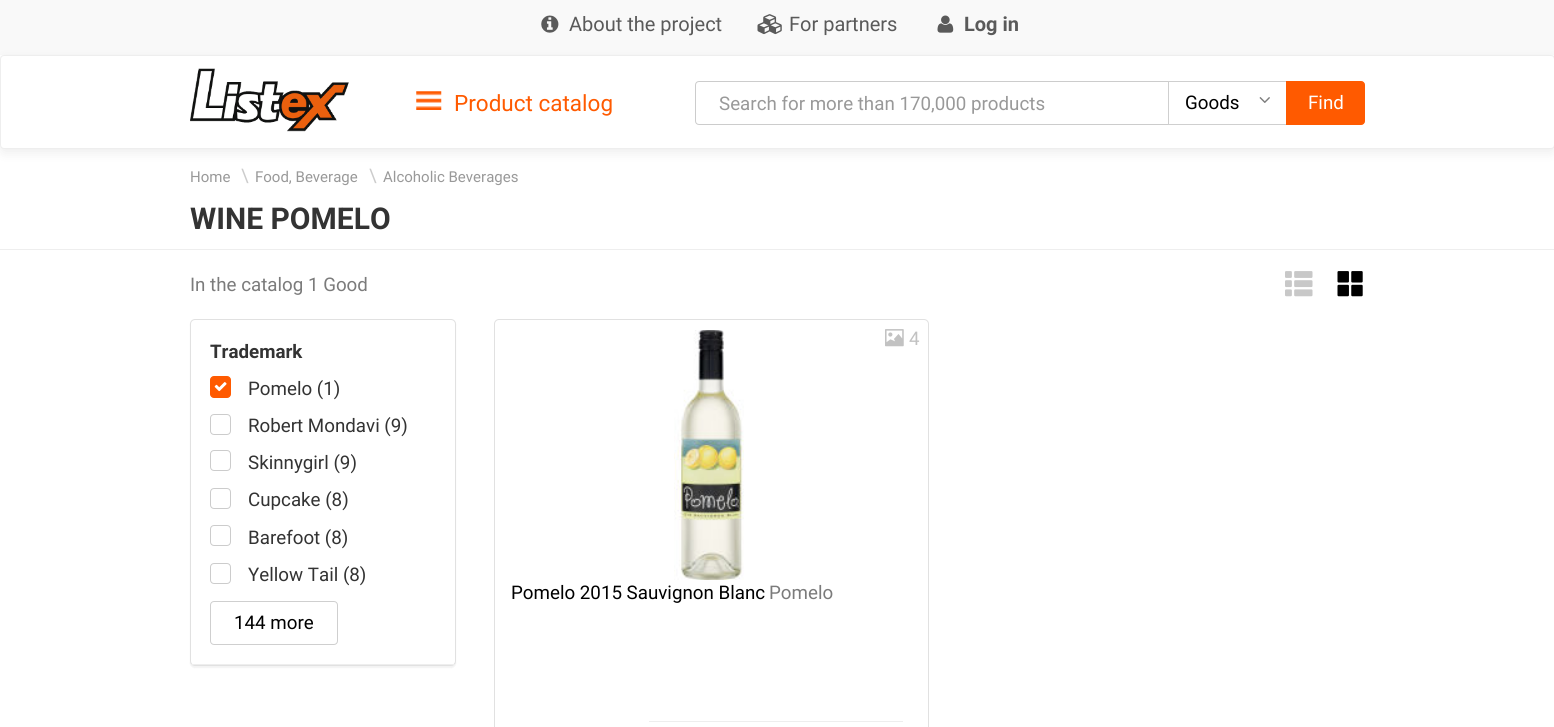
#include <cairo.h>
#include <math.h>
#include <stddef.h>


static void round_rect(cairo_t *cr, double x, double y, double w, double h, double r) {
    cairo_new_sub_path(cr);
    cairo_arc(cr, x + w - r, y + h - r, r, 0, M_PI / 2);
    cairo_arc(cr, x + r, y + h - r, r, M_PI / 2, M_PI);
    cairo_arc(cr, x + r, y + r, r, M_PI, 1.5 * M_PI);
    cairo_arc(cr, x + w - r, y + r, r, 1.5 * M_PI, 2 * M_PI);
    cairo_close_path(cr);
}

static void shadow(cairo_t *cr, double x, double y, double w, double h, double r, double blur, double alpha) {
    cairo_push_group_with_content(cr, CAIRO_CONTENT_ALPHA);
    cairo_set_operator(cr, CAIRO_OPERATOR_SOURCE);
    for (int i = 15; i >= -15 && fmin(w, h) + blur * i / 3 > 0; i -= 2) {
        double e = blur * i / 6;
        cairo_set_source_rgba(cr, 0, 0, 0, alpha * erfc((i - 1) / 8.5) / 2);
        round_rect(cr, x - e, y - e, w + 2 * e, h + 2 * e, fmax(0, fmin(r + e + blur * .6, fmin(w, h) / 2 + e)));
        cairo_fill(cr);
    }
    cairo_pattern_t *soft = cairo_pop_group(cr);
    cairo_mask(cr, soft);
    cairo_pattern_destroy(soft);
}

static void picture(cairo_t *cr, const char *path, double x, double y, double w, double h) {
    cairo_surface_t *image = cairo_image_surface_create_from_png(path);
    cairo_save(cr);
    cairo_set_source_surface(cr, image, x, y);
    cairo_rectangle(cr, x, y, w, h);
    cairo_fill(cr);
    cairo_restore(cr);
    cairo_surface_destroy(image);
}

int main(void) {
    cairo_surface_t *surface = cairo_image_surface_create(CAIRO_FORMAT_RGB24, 1554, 727);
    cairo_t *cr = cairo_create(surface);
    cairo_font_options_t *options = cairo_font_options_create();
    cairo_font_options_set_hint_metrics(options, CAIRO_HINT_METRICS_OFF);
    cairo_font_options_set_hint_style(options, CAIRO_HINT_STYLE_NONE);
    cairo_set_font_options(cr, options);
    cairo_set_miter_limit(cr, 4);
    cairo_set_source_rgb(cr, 1, 1, 1);
    cairo_paint(cr);
    cairo_set_source_rgb(cr, 0.976, 0.976, 0.976);
    cairo_rectangle(cr, 0, 0, 1554, 55);
    cairo_fill(cr);
    picture(cr, "img1.png", 541, 15, 18, 18);
    cairo_select_font_face(cr, "Roboto", CAIRO_FONT_SLANT_NORMAL, CAIRO_FONT_WEIGHT_NORMAL);
    cairo_set_font_size(cr, 20);
    cairo_set_source_rgb(cr, 0.353, 0.353, 0.353);
    cairo_move_to(cr, 569, 31);
    cairo_show_text(cr, "About the project");
    picture(cr, "img2.png", 757, 14, 25, 21);
    cairo_move_to(cr, 789, 31);
    cairo_show_text(cr, "For partners");
    picture(cr, "img3.png", 937, 15, 17, 18);
    cairo_select_font_face(cr, "Roboto", CAIRO_FONT_SLANT_NORMAL, CAIRO_FONT_WEIGHT_BOLD);
    cairo_move_to(cr, 964, 31);
    cairo_show_text(cr, "Log in");
    cairo_set_source_rgb(cr, 0, 0, 0);
    shadow(cr, 0, 59, 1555, 94, 4, 6, 0.07);
    cairo_set_source_rgb(cr, 1, 1, 1);
    round_rect(cr, 0.5, 55.5, 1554, 93, 3.5);
    cairo_fill_preserve(cr);
    cairo_set_source_rgb(cr, 0.933, 0.933, 0.933);
    cairo_set_line_width(cr, 1);
    cairo_stroke(cr);
    picture(cr, "img4.png", 190, 68, 159, 64);
    picture(cr, "img5.png", 416, 91, 26, 19);
    cairo_select_font_face(cr, "Roboto", CAIRO_FONT_SLANT_NORMAL, CAIRO_FONT_WEIGHT_NORMAL);
    cairo_set_font_size(cr, 22.5);
    cairo_set_source_rgb(cr, 1, 0.353, 0);
    cairo_move_to(cr, 454, 111);
    cairo_show_text(cr, "Product catalog");
    cairo_new_path(cr);
    cairo_move_to(cr, 699, 81.5);
    cairo_line_to(cr, 1177.5, 81.5);
    cairo_line_to(cr, 1177.5, 124.5);
    cairo_line_to(cr, 699, 124.5);
    cairo_curve_to(cr, 697, 124.5, 695.5, 123, 695.5, 121);
    cairo_line_to(cr, 695.5, 85);
    cairo_curve_to(cr, 695.5, 83, 697, 81.5, 699, 81.5);
    cairo_close_path(cr);
    cairo_set_source_rgb(cr, 0.8, 0.8, 0.8);
    cairo_stroke(cr);
    cairo_set_font_size(cr, 18.75);
    cairo_set_source_rgb(cr, 0.6, 0.6, 0.6);
    cairo_move_to(cr, 719, 110);
    cairo_show_text(cr, "Search for more than 170,000 products");
    cairo_set_source_rgb(cr, 1, 1, 1);
    cairo_rectangle(cr, 1177, 82, 1, 42);
    cairo_fill(cr);
    cairo_rectangle(cr, 1168.5, 81.5, 124, 43);
    cairo_set_source_rgb(cr, 0.812, 0.812, 0.812);
    cairo_stroke(cr);
    cairo_set_source_rgb(cr, 0, 0, 0);
    cairo_move_to(cr, 1185, 109);
    cairo_show_text(cr, "Goods");
    picture(cr, "img6.png", 1259, 97, 11, 6);
    cairo_set_source_rgb(cr, 1, 0.353, 0);
    cairo_new_path(cr);
    cairo_move_to(cr, 1286.5, 81.5);
    cairo_line_to(cr, 1361, 81.5);
    cairo_curve_to(cr, 1363, 81.5, 1364.5, 83, 1364.5, 85);
    cairo_line_to(cr, 1364.5, 121);
    cairo_curve_to(cr, 1364.5, 123, 1363, 124.5, 1361, 124.5);
    cairo_line_to(cr, 1286.5, 124.5);
    cairo_close_path(cr);
    cairo_fill_preserve(cr);
    cairo_stroke(cr);
    cairo_set_source_rgb(cr, 1, 1, 1);
    cairo_move_to(cr, 1308, 109);
    cairo_show_text(cr, "Find");
    cairo_set_source_rgb(cr, 0.933, 0.933, 0.933);
    cairo_rectangle(cr, 0, 249, 1554, 1);
    cairo_fill(cr);
    cairo_set_font_size(cr, 15);
    cairo_set_source_rgb(cr, 0.6, 0.6, 0.6);
    cairo_move_to(cr, 190, 182);
    cairo_show_text(cr, "Home");
    cairo_set_font_size(cr, 18.75);
    cairo_set_source_rgb(cr, 0.8, 0.8, 0.8);
    cairo_move_to(cr, 241, 182);
    cairo_show_text(cr, "\\");
    cairo_set_font_size(cr, 15);
    cairo_set_source_rgb(cr, 0.6, 0.6, 0.6);
    cairo_move_to(cr, 255, 182);
    cairo_show_text(cr, "Food, Beverage");
    cairo_set_font_size(cr, 18.75);
    cairo_set_source_rgb(cr, 0.8, 0.8, 0.8);
    cairo_move_to(cr, 369, 182);
    cairo_show_text(cr, "\\");
    cairo_set_font_size(cr, 15);
    cairo_set_source_rgb(cr, 0.6, 0.6, 0.6);
    cairo_move_to(cr, 383, 182);
    cairo_show_text(cr, "Alcoholic Beverages");
    cairo_select_font_face(cr, "Roboto", CAIRO_FONT_SLANT_NORMAL, CAIRO_FONT_WEIGHT_BOLD);
    cairo_set_font_size(cr, 30);
    cairo_set_source_rgb(cr, 0.2, 0.2, 0.2);
    cairo_move_to(cr, 190, 229);
    cairo_show_text(cr, "WINE POMELO");
    cairo_select_font_face(cr, "Roboto", CAIRO_FONT_SLANT_NORMAL, CAIRO_FONT_WEIGHT_NORMAL);
    cairo_set_font_size(cr, 18.75);
    cairo_set_source_rgb(cr, 0.482, 0.482, 0.482);
    cairo_move_to(cr, 190, 291);
    cairo_show_text(cr, "In the catalog 1 Good");
    picture(cr, "img7.png", 1285, 271, 28, 26);
    picture(cr, "img8.png", 1337, 271, 26, 26);
    cairo_set_source_rgb(cr, 0, 0, 0);
    shadow(cr, 190, 320, 266, 348, 5, 0.5, 0.05);
    cairo_set_source_rgb(cr, 1, 1, 1);
    round_rect(cr, 190.5, 319.5, 265, 346, 4.5);
    cairo_fill_preserve(cr);
    cairo_set_source_rgb(cr, 0.882, 0.882, 0.882);
    cairo_stroke(cr);
    cairo_select_font_face(cr, "Roboto", CAIRO_FONT_SLANT_NORMAL, CAIRO_FONT_WEIGHT_BOLD);
    cairo_set_source_rgb(cr, 0.2, 0.2, 0.2);
    cairo_move_to(cr, 210, 358);
    cairo_show_text(cr, "Trademark");
    cairo_set_source_rgb(cr, 1, 0.353, 0);
    round_rect(cr, 210.5, 376.5, 20, 21, 3.5);
    cairo_fill_preserve(cr);
    cairo_stroke(cr);
    cairo_select_font_face(cr, "Roboto", CAIRO_FONT_SLANT_NORMAL, CAIRO_FONT_WEIGHT_NORMAL);
    cairo_set_source_rgb(cr, 0.2, 0.2, 0.2);
    cairo_move_to(cr, 248, 395);
    cairo_show_text(cr, "Pomelo (1)");
    picture(cr, "img9.png", 214, 382, 13, 10);
    round_rect(cr, 210.5, 414.5, 20, 20, 3.5);
    cairo_set_source_rgb(cr, 0.8, 0.8, 0.8);
    cairo_stroke(cr);
    cairo_set_source_rgb(cr, 0.2, 0.2, 0.2);
    cairo_move_to(cr, 248, 432);
    cairo_show_text(cr, "Robert Mondavi (9)");
    round_rect(cr, 210.5, 450.5, 20, 20, 3.5);
    cairo_set_source_rgb(cr, 0.8, 0.8, 0.8);
    cairo_stroke(cr);
    cairo_set_source_rgb(cr, 0.2, 0.2, 0.2);
    cairo_move_to(cr, 248, 469);
    cairo_show_text(cr, "Skinnygirl (9)");
    round_rect(cr, 210.5, 488.5, 20, 20, 3.5);
    cairo_set_source_rgb(cr, 0.8, 0.8, 0.8);
    cairo_stroke(cr);
    cairo_set_source_rgb(cr, 0.2, 0.2, 0.2);
    cairo_move_to(cr, 248, 506);
    cairo_show_text(cr, "Cupcake (8)");
    round_rect(cr, 210.5, 525.5, 20, 20, 3.5);
    cairo_set_source_rgb(cr, 0.8, 0.8, 0.8);
    cairo_stroke(cr);
    cairo_set_source_rgb(cr, 0.2, 0.2, 0.2);
    cairo_move_to(cr, 248, 544);
    cairo_show_text(cr, "Barefoot (8)");
    round_rect(cr, 210.5, 563.5, 20, 20, 3.5);
    cairo_set_source_rgb(cr, 0.8, 0.8, 0.8);
    cairo_stroke(cr);
    cairo_set_source_rgb(cr, 0.2, 0.2, 0.2);
    cairo_move_to(cr, 248, 581);
    cairo_show_text(cr, "Yellow Tail (8)");
    round_rect(cr, 210.5, 601.5, 127, 43, 3.5);
    cairo_set_source_rgb(cr, 0.812, 0.812, 0.812);
    cairo_stroke(cr);
    cairo_set_source_rgb(cr, 0, 0, 0);
    cairo_move_to(cr, 234, 629);
    cairo_show_text(cr, "144 more");
    cairo_set_source_rgb(cr, 0.933, 0.933, 0.933);
    cairo_rectangle(cr, 191, 664, 264, 1);
    cairo_fill(cr);
    round_rect(cr, 494.5, 319.5, 434, 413, 4.5);
    cairo_set_source_rgb(cr, 0.882, 0.882, 0.882);
    cairo_stroke(cr);
    picture(cr, "img10.png", 674, 330, 70, 250);
    picture(cr, "img11.png", 885, 329, 19, 18);
    cairo_set_source_rgb(cr, 0.761, 0.761, 0.761);
    cairo_move_to(cr, 909, 345);
    cairo_show_text(cr, "4");
    cairo_set_source_rgb(cr, 0, 0, 0);
    cairo_move_to(cr, 511, 599);
    cairo_show_text(cr, "Pomelo 2015 Sauvignon Blanc");
    cairo_set_source_rgb(cr, 0.482, 0.482, 0.482);
    cairo_move_to(cr, 769, 599);
    cairo_show_text(cr, "Pomelo");
    cairo_set_source_rgb(cr, 0.933, 0.933, 0.933);
    cairo_rectangle(cr, 649, 721, 254, 1);
    cairo_fill(cr);
    cairo_surface_write_to_png(surface, "page.png");
    cairo_font_options_destroy(options);
    cairo_destroy(cr);
    cairo_surface_destroy(surface);
    return 0;
}
